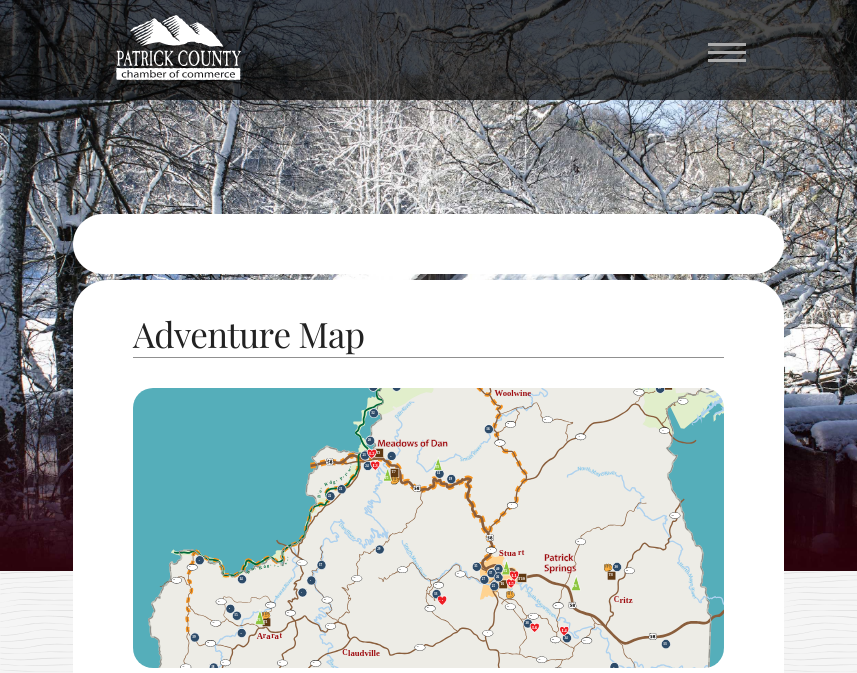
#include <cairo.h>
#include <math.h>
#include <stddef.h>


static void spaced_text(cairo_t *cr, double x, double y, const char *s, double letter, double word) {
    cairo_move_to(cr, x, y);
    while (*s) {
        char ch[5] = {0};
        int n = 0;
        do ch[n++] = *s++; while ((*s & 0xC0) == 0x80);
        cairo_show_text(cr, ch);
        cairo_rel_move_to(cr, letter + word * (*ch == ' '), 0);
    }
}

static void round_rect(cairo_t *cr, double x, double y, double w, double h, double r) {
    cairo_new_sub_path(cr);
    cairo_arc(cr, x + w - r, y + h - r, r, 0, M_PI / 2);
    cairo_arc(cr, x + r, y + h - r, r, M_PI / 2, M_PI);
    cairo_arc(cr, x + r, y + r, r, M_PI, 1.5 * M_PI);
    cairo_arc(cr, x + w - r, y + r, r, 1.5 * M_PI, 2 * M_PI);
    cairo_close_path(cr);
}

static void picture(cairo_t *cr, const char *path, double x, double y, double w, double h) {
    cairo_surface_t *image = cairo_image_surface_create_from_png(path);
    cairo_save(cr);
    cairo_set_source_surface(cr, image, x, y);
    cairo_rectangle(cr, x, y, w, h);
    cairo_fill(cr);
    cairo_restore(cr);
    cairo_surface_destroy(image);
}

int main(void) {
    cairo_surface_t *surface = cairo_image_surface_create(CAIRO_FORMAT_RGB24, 857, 673);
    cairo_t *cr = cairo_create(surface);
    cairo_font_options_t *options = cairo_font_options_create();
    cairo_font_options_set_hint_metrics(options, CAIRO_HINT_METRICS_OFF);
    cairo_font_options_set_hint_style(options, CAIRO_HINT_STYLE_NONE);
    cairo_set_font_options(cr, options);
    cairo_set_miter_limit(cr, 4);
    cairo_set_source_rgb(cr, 1, 1, 1);
    cairo_paint(cr);
    picture(cr, "img1.png", 0, 571, 857, 102);
    picture(cr, "img2.png", 0, 0, 857, 571);
    cairo_set_source_rgba(cr, 0, 0, 0, 0.7);
    cairo_rectangle(cr, 0, 0, 857, 100);
    cairo_fill(cr);
    picture(cr, "img3.png", 116, 15, 125, 65);
    cairo_set_source_rgb(cr, 0.671, 0.671, 0.671);
    cairo_rectangle(cr, 708, 43, 38, 3);
    cairo_fill(cr);
    cairo_rectangle(cr, 708, 51, 38, 3);
    cairo_fill(cr);
    cairo_rectangle(cr, 708, 59, 38, 3);
    cairo_fill(cr);
    cairo_set_source_rgb(cr, 1, 1, 1);
    round_rect(cr, 73, 214, 711, 60, 30);
    cairo_fill(cr);
    round_rect(cr, 73, 280, 711, 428, 35);
    cairo_fill(cr);
    cairo_set_source_rgb(cr, 0.565, 0.565, 0.565);
    cairo_rectangle(cr, 133, 357, 591, 1);
    cairo_fill(cr);
    cairo_select_font_face(cr, "Playfair Display", CAIRO_FONT_SLANT_NORMAL, CAIRO_FONT_WEIGHT_NORMAL);
    cairo_set_font_size(cr, 35);
    cairo_set_source_rgb(cr, 0.133, 0.133, 0.133);
    spaced_text(cr, 133, 348, "Adventure Map", -0.75, 0);
    picture(cr, "img4.png", 133, 388, 591, 280);
    cairo_surface_write_to_png(surface, "page.png");
    cairo_font_options_destroy(options);
    cairo_destroy(cr);
    cairo_surface_destroy(surface);
    return 0;
}
